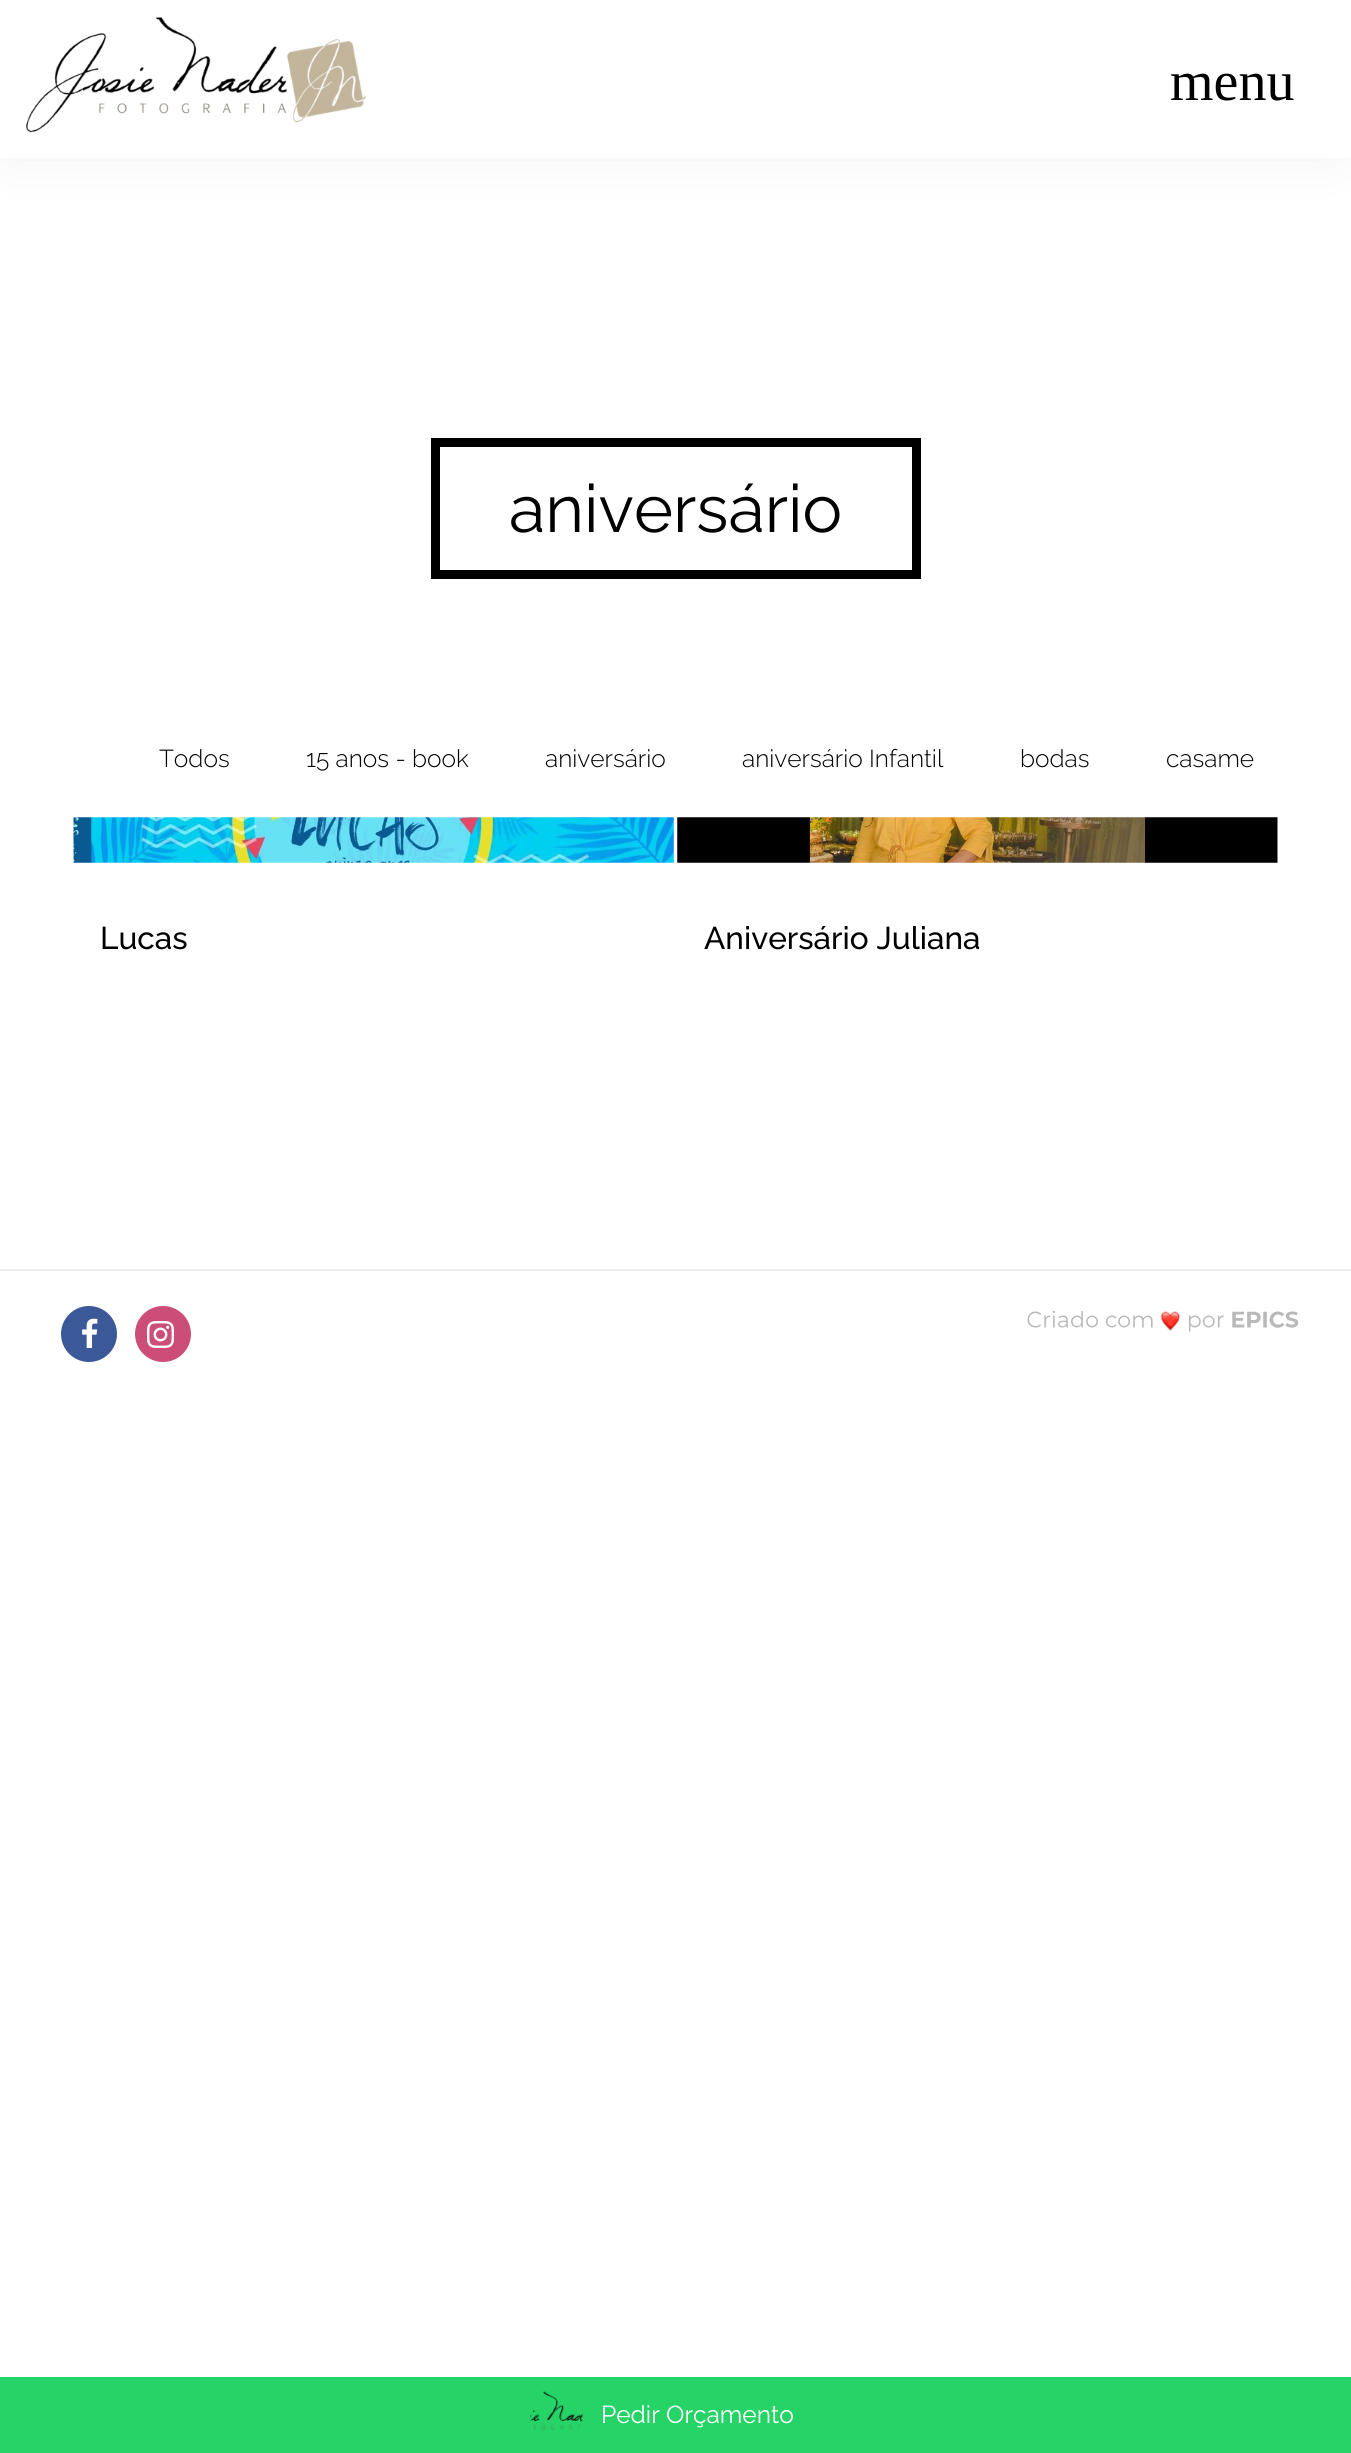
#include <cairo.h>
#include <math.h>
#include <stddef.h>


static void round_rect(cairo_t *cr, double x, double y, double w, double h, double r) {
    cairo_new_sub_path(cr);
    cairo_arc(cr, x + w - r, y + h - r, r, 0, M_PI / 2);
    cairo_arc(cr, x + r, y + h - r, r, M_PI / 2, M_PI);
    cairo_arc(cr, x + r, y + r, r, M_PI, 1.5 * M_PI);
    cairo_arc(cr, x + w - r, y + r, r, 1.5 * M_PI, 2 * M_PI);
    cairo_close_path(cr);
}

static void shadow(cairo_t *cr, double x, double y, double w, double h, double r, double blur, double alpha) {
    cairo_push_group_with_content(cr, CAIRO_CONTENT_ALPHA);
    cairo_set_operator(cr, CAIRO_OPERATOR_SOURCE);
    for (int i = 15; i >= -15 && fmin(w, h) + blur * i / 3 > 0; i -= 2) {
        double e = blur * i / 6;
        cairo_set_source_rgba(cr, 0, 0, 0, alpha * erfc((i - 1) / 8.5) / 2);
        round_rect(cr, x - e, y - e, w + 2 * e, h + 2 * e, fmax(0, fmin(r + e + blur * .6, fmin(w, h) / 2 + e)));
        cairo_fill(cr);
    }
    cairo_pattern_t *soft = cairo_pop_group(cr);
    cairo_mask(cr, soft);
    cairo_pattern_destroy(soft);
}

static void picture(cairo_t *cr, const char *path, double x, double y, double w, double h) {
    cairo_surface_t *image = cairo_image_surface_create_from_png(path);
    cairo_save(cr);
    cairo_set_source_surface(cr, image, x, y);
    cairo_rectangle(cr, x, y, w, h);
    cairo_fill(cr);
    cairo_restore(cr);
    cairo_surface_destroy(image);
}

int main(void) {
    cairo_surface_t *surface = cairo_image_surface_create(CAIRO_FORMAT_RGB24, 1351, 2453);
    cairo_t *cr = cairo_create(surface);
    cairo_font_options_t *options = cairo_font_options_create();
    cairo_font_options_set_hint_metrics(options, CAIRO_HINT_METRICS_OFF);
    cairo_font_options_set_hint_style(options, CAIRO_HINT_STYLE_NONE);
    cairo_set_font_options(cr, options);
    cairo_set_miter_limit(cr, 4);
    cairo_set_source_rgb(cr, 1, 1, 1);
    cairo_paint(cr);
    cairo_set_source_rgb(cr, 0, 0, 0);
    shadow(cr, 5, 11, 1330, 136, 0, 28, 0.09);
    cairo_set_source_rgb(cr, 1, 1, 1);
    cairo_rectangle(cr, 0, 0, 1351, 158);
    cairo_fill(cr);
    picture(cr, "img1.png", 26, 17, 340, 116);
    cairo_select_font_face(cr, "Liberation Serif", CAIRO_FONT_SLANT_NORMAL, CAIRO_FONT_WEIGHT_NORMAL);
    cairo_set_font_size(cr, 56);
    cairo_set_source_rgb(cr, 0, 0, 0);
    cairo_move_to(cr, 1170, 100);
    cairo_show_text(cr, "menu");
    cairo_rectangle(cr, 435.5, 442.5, 481, 132);
    cairo_set_line_width(cr, 9);
    cairo_stroke(cr);
    cairo_select_font_face(cr, "Raleway", CAIRO_FONT_SLANT_NORMAL, CAIRO_FONT_WEIGHT_NORMAL);
    cairo_set_font_size(cr, 66.5);
    cairo_move_to(cr, 509, 532);
    cairo_show_text(cr, "aniversário");
    cairo_select_font_face(cr, "Raleway Light", CAIRO_FONT_SLANT_NORMAL, CAIRO_FONT_WEIGHT_NORMAL);
    cairo_set_font_size(cr, 24.5);
    cairo_move_to(cr, 159, 767);
    cairo_show_text(cr, "Todos");
    cairo_move_to(cr, 306, 767);
    cairo_show_text(cr, "15 anos - book");
    cairo_move_to(cr, 545, 767);
    cairo_show_text(cr, "aniversário");
    cairo_move_to(cr, 742, 767);
    cairo_show_text(cr, "aniversário Infantil");
    cairo_move_to(cr, 1020, 767);
    cairo_show_text(cr, "bodas");
    cairo_move_to(cr, 1166, 767);
    cairo_show_text(cr, "casame");
    picture(cr, "img2.png", 73, 817, 601, 46);
    cairo_select_font_face(cr, "Raleway Medium", CAIRO_FONT_SLANT_NORMAL, CAIRO_FONT_WEIGHT_NORMAL);
    cairo_set_font_size(cr, 31.5);
    cairo_move_to(cr, 100, 949);
    cairo_show_text(cr, "Lucas");
    picture(cr, "img3.png", 677, 817, 601, 46);
    cairo_move_to(cr, 704, 949);
    cairo_show_text(cr, "Aniversário Juliana");
    cairo_set_source_rgb(cr, 0.929, 0.929, 0.929);
    cairo_rectangle(cr, 0, 1269, 1351, 2);
    cairo_fill(cr);
    cairo_set_source_rgb(cr, 0.231, 0.349, 0.596);
    cairo_arc(cr, 89, 1334, 28, 0, 2 * M_PI);
    cairo_fill(cr);
    picture(cr, "img4.png", 82, 1318, 16, 30);
    cairo_set_source_rgb(cr, 0.8, 0.302, 0.471);
    cairo_arc(cr, 163, 1334, 28, 0, 2 * M_PI);
    cairo_fill(cr);
    picture(cr, "img5.png", 147, 1321, 27, 27);
    picture(cr, "img6.png", 1027, 1311, 272, 21);
    cairo_set_source_rgb(cr, 0.145, 0.827, 0.4);
    cairo_rectangle(cr, 0, 2377, 1351, 76);
    cairo_fill(cr);
    picture(cr, "img7.png", 530, 2391, 54, 39);
    cairo_select_font_face(cr, "Raleway", CAIRO_FONT_SLANT_NORMAL, CAIRO_FONT_WEIGHT_NORMAL);
    cairo_set_font_size(cr, 24.5);
    cairo_set_source_rgb(cr, 1, 1, 1);
    cairo_move_to(cr, 601, 2423);
    cairo_show_text(cr, "Pedir Orçamento");
    cairo_surface_write_to_png(surface, "page.png");
    cairo_font_options_destroy(options);
    cairo_destroy(cr);
    cairo_surface_destroy(surface);
    return 0;
}
